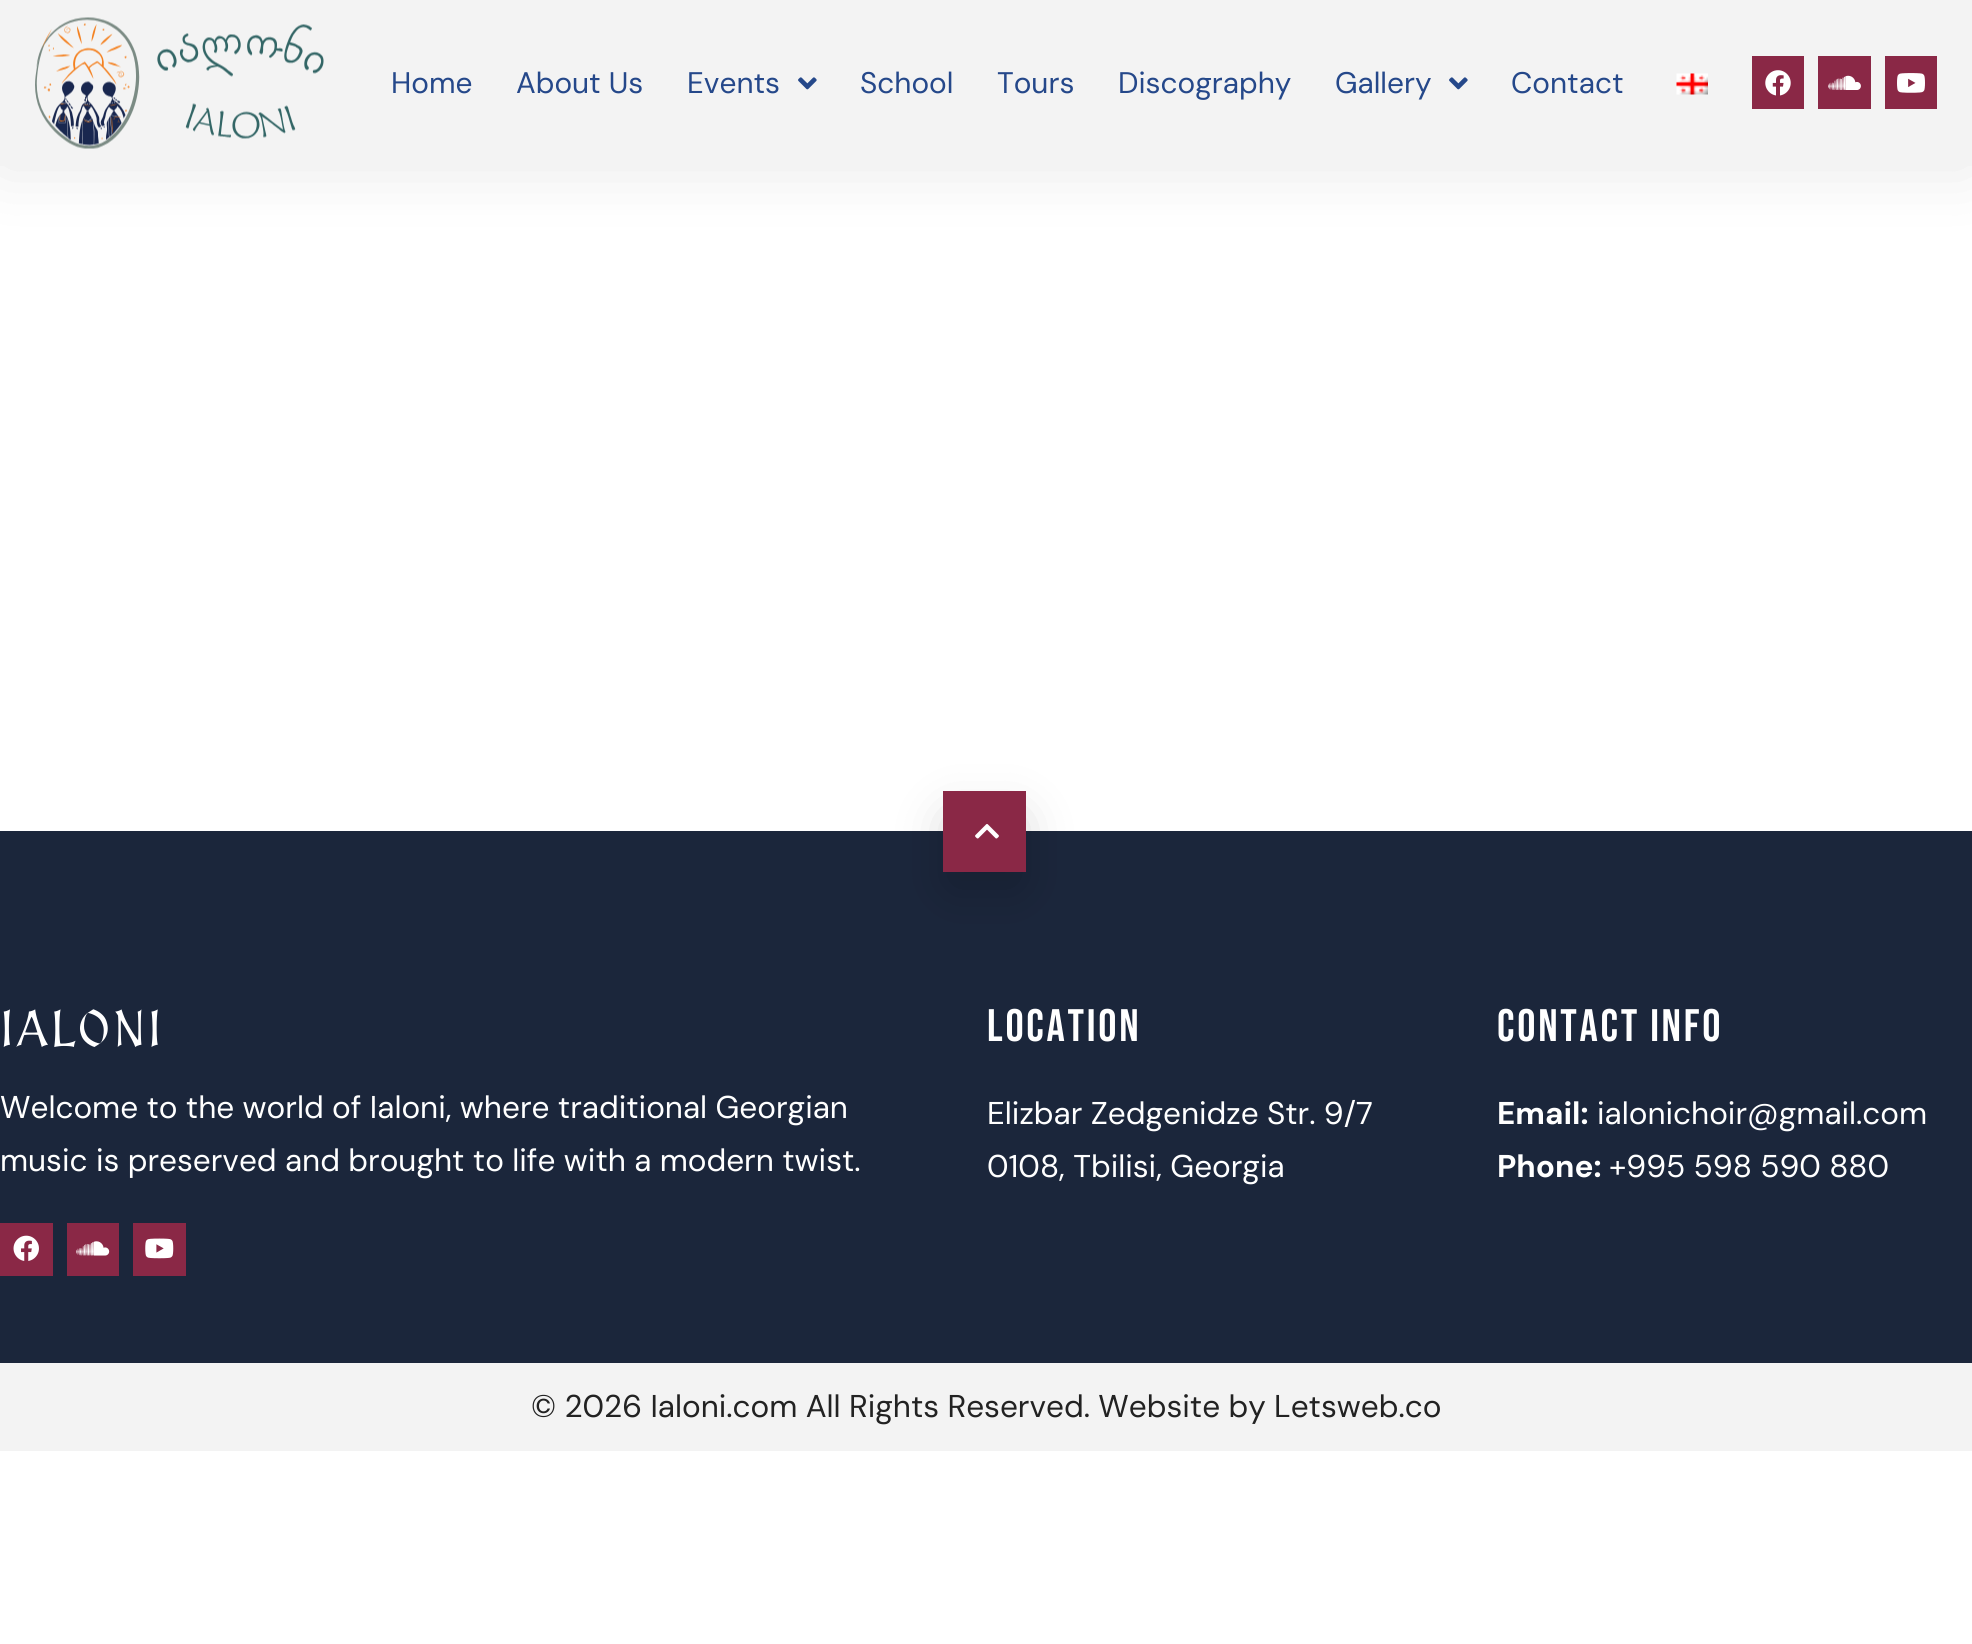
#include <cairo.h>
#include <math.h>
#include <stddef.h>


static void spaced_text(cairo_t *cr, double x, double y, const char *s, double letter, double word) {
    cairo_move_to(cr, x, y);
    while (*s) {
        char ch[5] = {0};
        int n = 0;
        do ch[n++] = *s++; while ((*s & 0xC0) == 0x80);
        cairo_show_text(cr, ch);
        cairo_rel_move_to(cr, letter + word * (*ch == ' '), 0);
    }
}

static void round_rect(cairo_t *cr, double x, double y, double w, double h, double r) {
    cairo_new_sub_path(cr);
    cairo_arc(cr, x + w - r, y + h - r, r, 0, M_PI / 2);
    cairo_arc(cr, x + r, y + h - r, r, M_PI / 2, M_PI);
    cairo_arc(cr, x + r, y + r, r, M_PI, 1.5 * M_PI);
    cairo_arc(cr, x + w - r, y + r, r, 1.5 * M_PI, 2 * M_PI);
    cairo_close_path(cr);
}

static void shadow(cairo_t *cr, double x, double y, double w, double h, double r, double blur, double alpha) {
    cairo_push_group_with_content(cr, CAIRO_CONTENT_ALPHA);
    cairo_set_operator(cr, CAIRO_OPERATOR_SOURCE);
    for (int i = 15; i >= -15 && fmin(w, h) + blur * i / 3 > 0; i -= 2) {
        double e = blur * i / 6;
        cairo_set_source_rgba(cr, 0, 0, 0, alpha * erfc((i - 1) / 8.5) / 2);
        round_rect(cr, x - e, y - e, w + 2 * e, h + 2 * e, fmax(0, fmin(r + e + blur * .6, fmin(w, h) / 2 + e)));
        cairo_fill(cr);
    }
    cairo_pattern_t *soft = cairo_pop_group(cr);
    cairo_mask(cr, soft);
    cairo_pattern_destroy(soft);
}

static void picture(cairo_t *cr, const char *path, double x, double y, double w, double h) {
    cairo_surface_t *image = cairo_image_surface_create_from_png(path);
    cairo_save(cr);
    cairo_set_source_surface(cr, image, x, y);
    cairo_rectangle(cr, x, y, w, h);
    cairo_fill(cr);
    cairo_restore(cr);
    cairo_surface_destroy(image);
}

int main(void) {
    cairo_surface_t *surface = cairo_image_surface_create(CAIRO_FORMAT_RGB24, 1972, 1644);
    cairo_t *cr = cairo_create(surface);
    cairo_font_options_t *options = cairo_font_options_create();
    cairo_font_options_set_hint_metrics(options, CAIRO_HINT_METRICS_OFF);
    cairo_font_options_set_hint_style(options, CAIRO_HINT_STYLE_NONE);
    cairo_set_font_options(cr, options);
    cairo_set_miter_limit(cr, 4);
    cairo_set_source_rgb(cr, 1, 1, 1);
    cairo_paint(cr);
    cairo_set_source_rgb(cr, 0, 0, 0);
    shadow(cr, 0, 0, 1972, 166, 0, 33, 0.1);
    cairo_set_source_rgb(cr, 0.953, 0.953, 0.953);
    cairo_rectangle(cr, 0, 0, 1972, 166);
    cairo_fill(cr);
    picture(cr, "img1.png", 35, 17, 289, 132);
    cairo_select_font_face(cr, "DM Sans", CAIRO_FONT_SLANT_NORMAL, CAIRO_FONT_WEIGHT_NORMAL);
    cairo_set_font_size(cr, 29.75);
    cairo_set_source_rgb(cr, 0.145, 0.282, 0.541);
    cairo_move_to(cr, 391, 93);
    cairo_show_text(cr, "Home");
    cairo_move_to(cr, 516, 93);
    cairo_show_text(cr, "About Us");
    cairo_move_to(cr, 687, 93);
    cairo_show_text(cr, "Events");
    picture(cr, "img2.png", 798, 77, 19, 13);
    cairo_move_to(cr, 860, 93);
    cairo_show_text(cr, "School");
    cairo_move_to(cr, 997, 93);
    cairo_show_text(cr, "Tours");
    cairo_move_to(cr, 1118, 93);
    cairo_show_text(cr, "Discography");
    cairo_move_to(cr, 1335, 93);
    cairo_show_text(cr, "Gallery");
    picture(cr, "img2.png", 1449, 77, 19, 13);
    cairo_move_to(cr, 1511, 93);
    cairo_show_text(cr, "Contact");
    picture(cr, "img3.png", 1676, 73, 32, 22);
    cairo_set_source_rgb(cr, 0.541, 0.157, 0.275);
    cairo_rectangle(cr, 1752, 56, 52, 53);
    cairo_fill(cr);
    picture(cr, "img4.png", 1765, 70, 26, 26);
    cairo_rectangle(cr, 1818, 56, 53, 53);
    cairo_fill(cr);
    picture(cr, "img5.png", 1828, 75, 33, 15);
    cairo_rectangle(cr, 1885, 56, 52, 53);
    cairo_fill(cr);
    picture(cr, "img6.png", 1897, 73, 28, 20);
    cairo_set_source_rgb(cr, 0.106, 0.149, 0.231);
    cairo_rectangle(cr, 0, 831, 1972, 532);
    cairo_fill(cr);
    cairo_set_source_rgb(cr, 0, 0, 0);
    shadow(cr, 950, 819, 69, 67, 0, 25.5, 0.19);
    cairo_set_source_rgb(cr, 0.541, 0.157, 0.275);
    cairo_rectangle(cr, 943, 791, 83, 81);
    cairo_fill(cr);
    picture(cr, "img7.png", 975, 824, 24, 15);
    cairo_select_font_face(cr, "MedievalSharp Medium", CAIRO_FONT_SLANT_NORMAL, CAIRO_FONT_WEIGHT_NORMAL);
    cairo_set_font_size(cr, 51);
    cairo_set_source_rgb(cr, 1, 1, 1);
    spaced_text(cr, 0, 1047, "IALONI", 2.5, 0);
    cairo_select_font_face(cr, "DM Sans", CAIRO_FONT_SLANT_NORMAL, CAIRO_FONT_WEIGHT_NORMAL);
    cairo_set_font_size(cr, 31.5);
    cairo_move_to(cr, 0, 1118);
    cairo_show_text(cr, "Welcome to the world of Ialoni, where traditional Georgian");
    cairo_move_to(cr, 0, 1171);
    cairo_show_text(cr, "music is preserved and brought to life with a modern twist.");
    cairo_set_source_rgb(cr, 0.541, 0.157, 0.275);
    cairo_rectangle(cr, 0, 1223, 53, 53);
    cairo_fill(cr);
    picture(cr, "img8.png", 13, 1235, 26, 26);
    cairo_rectangle(cr, 67, 1223, 52, 53);
    cairo_fill(cr);
    picture(cr, "img9.png", 76, 1241, 34, 15);
    cairo_rectangle(cr, 133, 1223, 53, 53);
    cairo_fill(cr);
    picture(cr, "img10.png", 145, 1238, 29, 21);
    cairo_select_font_face(cr, "Bebas Neue", CAIRO_FONT_SLANT_NORMAL, CAIRO_FONT_WEIGHT_NORMAL);
    cairo_set_font_size(cr, 45.5);
    cairo_set_source_rgb(cr, 1, 1, 1);
    spaced_text(cr, 987, 1041, "LOCATION", 2.75, 0);
    cairo_select_font_face(cr, "DM Sans", CAIRO_FONT_SLANT_NORMAL, CAIRO_FONT_WEIGHT_NORMAL);
    cairo_set_font_size(cr, 31.5);
    cairo_move_to(cr, 987, 1124);
    cairo_show_text(cr, "Elizbar Zedgenidze Str. 9/7");
    cairo_move_to(cr, 987, 1177);
    cairo_show_text(cr, "0108, Tbilisi, Georgia");
    cairo_select_font_face(cr, "Bebas Neue", CAIRO_FONT_SLANT_NORMAL, CAIRO_FONT_WEIGHT_NORMAL);
    cairo_set_font_size(cr, 45.5);
    spaced_text(cr, 1497, 1041, "CONTACT INFO", 2.75, 0);
    cairo_select_font_face(cr, "DM Sans", CAIRO_FONT_SLANT_NORMAL, CAIRO_FONT_WEIGHT_BOLD);
    cairo_set_font_size(cr, 31.5);
    cairo_move_to(cr, 1497, 1124);
    cairo_show_text(cr, "Email:");
    cairo_select_font_face(cr, "DM Sans", CAIRO_FONT_SLANT_NORMAL, CAIRO_FONT_WEIGHT_NORMAL);
    cairo_move_to(cr, 1597, 1124);
    cairo_show_text(cr, "ialonichoir@gmail.com");
    cairo_select_font_face(cr, "DM Sans", CAIRO_FONT_SLANT_NORMAL, CAIRO_FONT_WEIGHT_BOLD);
    cairo_move_to(cr, 1497, 1177);
    cairo_show_text(cr, "Phone:");
    cairo_select_font_face(cr, "DM Sans", CAIRO_FONT_SLANT_NORMAL, CAIRO_FONT_WEIGHT_NORMAL);
    cairo_move_to(cr, 1609, 1177);
    cairo_show_text(cr, "+995 598 590 880");
    cairo_set_source_rgb(cr, 0.953, 0.953, 0.953);
    cairo_rectangle(cr, 0, 1363, 1972, 88);
    cairo_fill(cr);
    cairo_set_source_rgb(cr, 0.133, 0.133, 0.133);
    cairo_move_to(cr, 531, 1417);
    cairo_show_text(cr, "© 2026 Ialoni.com All Rights Reserved. Website by Letsweb.co");
    cairo_surface_write_to_png(surface, "page.png");
    cairo_font_options_destroy(options);
    cairo_destroy(cr);
    cairo_surface_destroy(surface);
    return 0;
}
